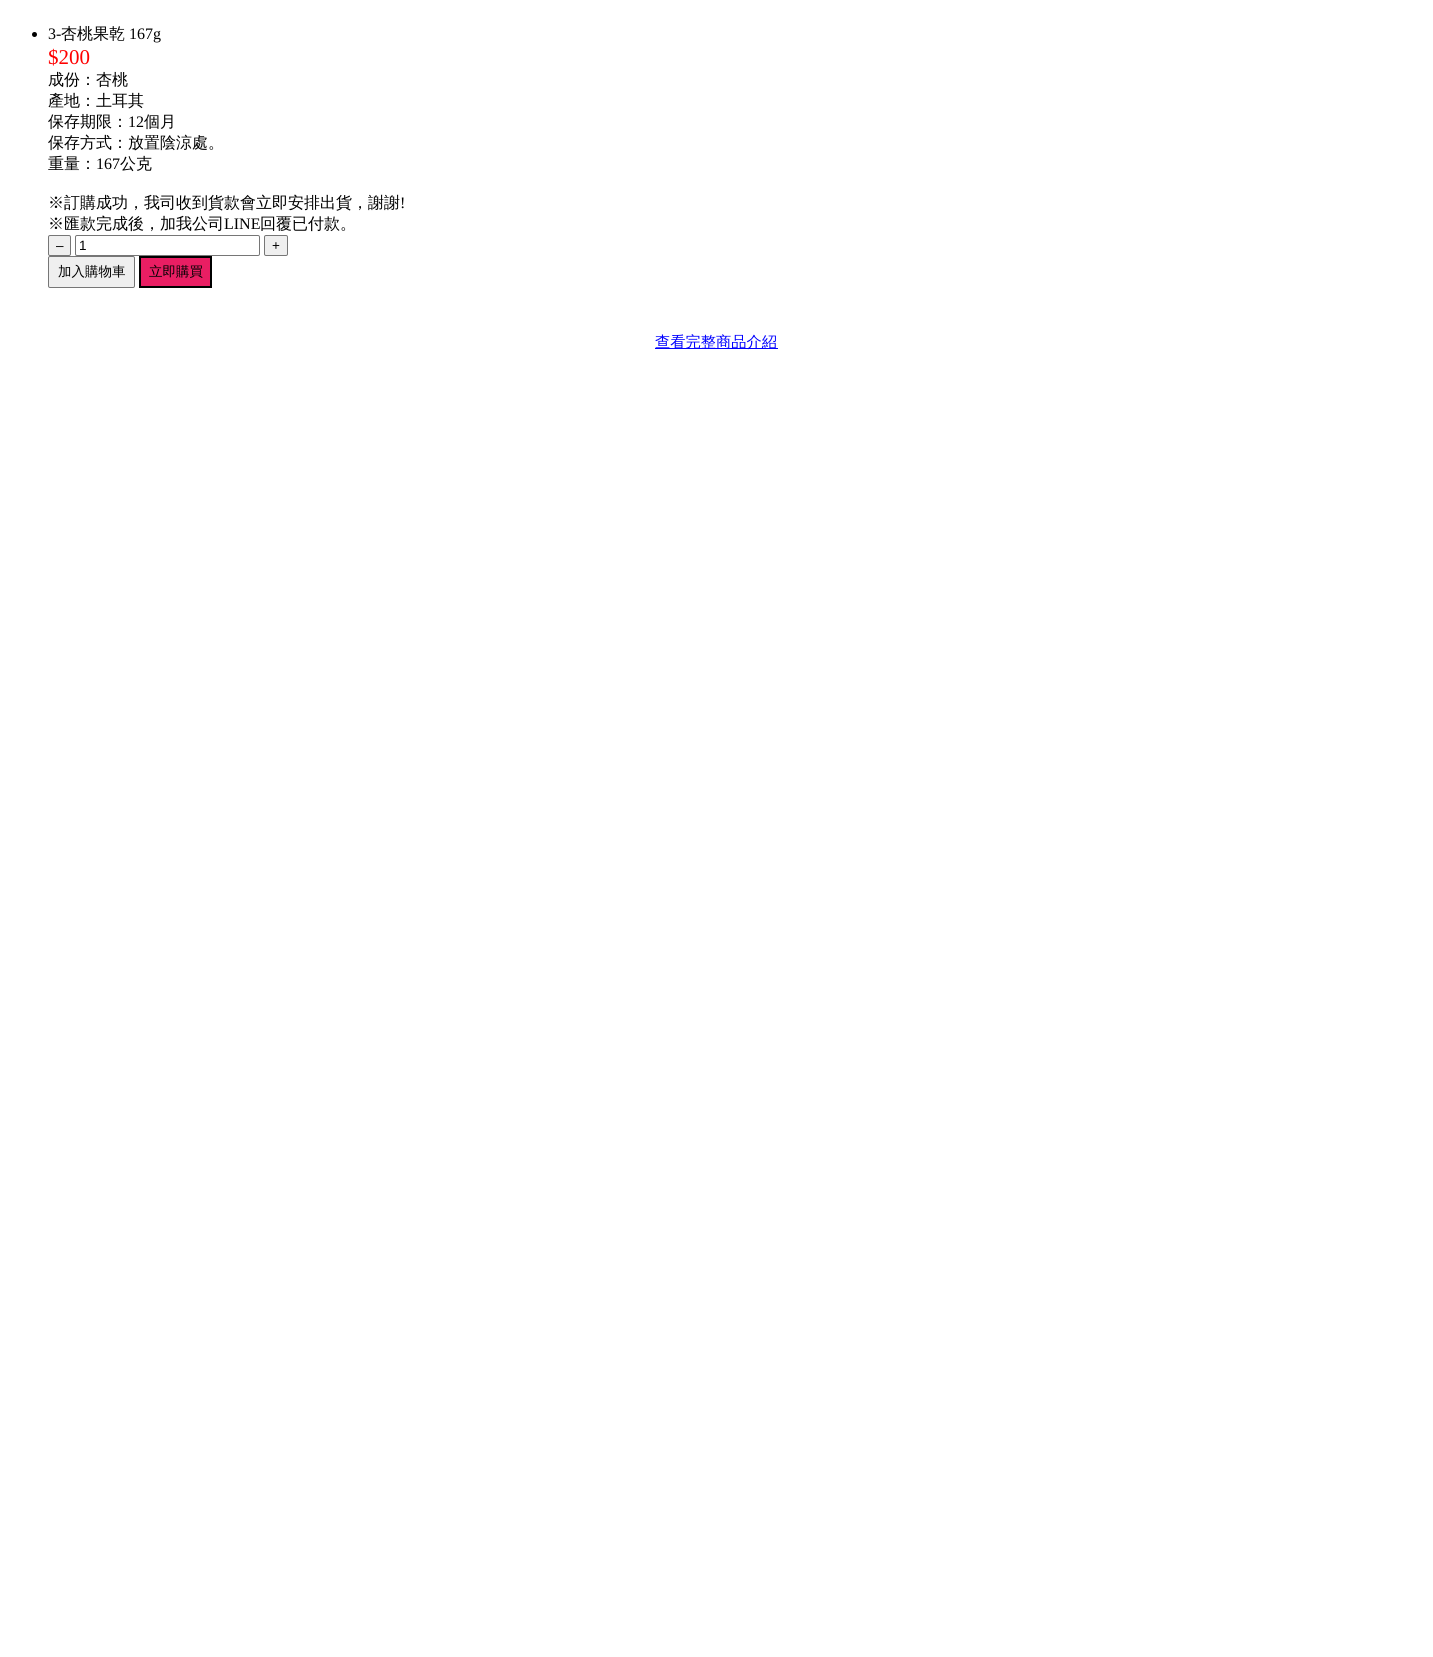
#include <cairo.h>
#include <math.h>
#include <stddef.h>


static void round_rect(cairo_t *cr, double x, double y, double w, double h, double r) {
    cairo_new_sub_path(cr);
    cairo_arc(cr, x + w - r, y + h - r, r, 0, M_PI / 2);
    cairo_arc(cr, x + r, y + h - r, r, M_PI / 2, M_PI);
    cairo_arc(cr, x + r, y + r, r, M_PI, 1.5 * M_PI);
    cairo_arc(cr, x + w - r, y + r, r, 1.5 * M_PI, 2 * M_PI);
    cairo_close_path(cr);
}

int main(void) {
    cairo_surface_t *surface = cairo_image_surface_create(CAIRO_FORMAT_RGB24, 1433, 1657);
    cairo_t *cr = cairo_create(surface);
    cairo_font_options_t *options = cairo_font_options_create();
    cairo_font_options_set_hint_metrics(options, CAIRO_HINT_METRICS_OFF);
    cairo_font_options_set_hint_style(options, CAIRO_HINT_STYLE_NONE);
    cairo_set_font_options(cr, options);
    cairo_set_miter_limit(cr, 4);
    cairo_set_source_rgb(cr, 1, 1, 1);
    cairo_paint(cr);
    cairo_set_source_rgb(cr, 0, 0, 0);
    cairo_arc(cr, 34.5, 34.5, 2.5, 0, 2 * M_PI);
    cairo_fill(cr);
    cairo_select_font_face(cr, "Liberation Serif", CAIRO_FONT_SLANT_NORMAL, CAIRO_FONT_WEIGHT_NORMAL);
    cairo_set_font_size(cr, 16);
    cairo_move_to(cr, 48, 39);
    cairo_show_text(cr, "3-");
    cairo_select_font_face(cr, "WenQuanYi Zen Hei Medium", CAIRO_FONT_SLANT_NORMAL, CAIRO_FONT_WEIGHT_NORMAL);
    cairo_move_to(cr, 61, 39);
    cairo_show_text(cr, "杏桃果乾");
    cairo_select_font_face(cr, "Liberation Serif", CAIRO_FONT_SLANT_NORMAL, CAIRO_FONT_WEIGHT_NORMAL);
    cairo_move_to(cr, 129, 39);
    cairo_show_text(cr, "167g");
    cairo_set_font_size(cr, 21);
    cairo_set_source_rgb(cr, 1, 0, 0);
    cairo_move_to(cr, 48, 64);
    cairo_show_text(cr, "$200");
    cairo_select_font_face(cr, "WenQuanYi Zen Hei Medium", CAIRO_FONT_SLANT_NORMAL, CAIRO_FONT_WEIGHT_NORMAL);
    cairo_set_font_size(cr, 16);
    cairo_set_source_rgb(cr, 0, 0, 0);
    cairo_move_to(cr, 48, 85);
    cairo_show_text(cr, "成份：杏桃");
    cairo_move_to(cr, 48, 106);
    cairo_show_text(cr, "產地：土耳其");
    cairo_move_to(cr, 48, 127);
    cairo_show_text(cr, "保存期限：");
    cairo_select_font_face(cr, "Liberation Serif", CAIRO_FONT_SLANT_NORMAL, CAIRO_FONT_WEIGHT_NORMAL);
    cairo_move_to(cr, 128, 127);
    cairo_show_text(cr, "12");
    cairo_select_font_face(cr, "WenQuanYi Zen Hei Medium", CAIRO_FONT_SLANT_NORMAL, CAIRO_FONT_WEIGHT_NORMAL);
    cairo_move_to(cr, 144, 127);
    cairo_show_text(cr, "個月");
    cairo_move_to(cr, 48, 148);
    cairo_show_text(cr, "保存方式：放置陰涼處。");
    cairo_move_to(cr, 48, 169);
    cairo_show_text(cr, "重量：");
    cairo_select_font_face(cr, "Liberation Serif", CAIRO_FONT_SLANT_NORMAL, CAIRO_FONT_WEIGHT_NORMAL);
    cairo_move_to(cr, 96, 169);
    cairo_show_text(cr, "167");
    cairo_select_font_face(cr, "WenQuanYi Zen Hei Medium", CAIRO_FONT_SLANT_NORMAL, CAIRO_FONT_WEIGHT_NORMAL);
    cairo_move_to(cr, 120, 169);
    cairo_show_text(cr, "公克");
    cairo_move_to(cr, 48, 208);
    cairo_show_text(cr, "※訂購成功，我司收到貨款會立即安排出貨，謝謝");
    cairo_select_font_face(cr, "Liberation Serif", CAIRO_FONT_SLANT_NORMAL, CAIRO_FONT_WEIGHT_NORMAL);
    cairo_move_to(cr, 400, 208);
    cairo_show_text(cr, "!");
    cairo_select_font_face(cr, "WenQuanYi Zen Hei Medium", CAIRO_FONT_SLANT_NORMAL, CAIRO_FONT_WEIGHT_NORMAL);
    cairo_move_to(cr, 48, 229);
    cairo_show_text(cr, "※匯款完成後，加我公司");
    cairo_select_font_face(cr, "Liberation Serif", CAIRO_FONT_SLANT_NORMAL, CAIRO_FONT_WEIGHT_NORMAL);
    cairo_move_to(cr, 224, 229);
    cairo_show_text(cr, "LINE");
    cairo_select_font_face(cr, "WenQuanYi Zen Hei Medium", CAIRO_FONT_SLANT_NORMAL, CAIRO_FONT_WEIGHT_NORMAL);
    cairo_move_to(cr, 260, 229);
    cairo_show_text(cr, "回覆已付款。");
    cairo_set_source_rgb(cr, 0.937, 0.937, 0.937);
    round_rect(cr, 48.5, 235.5, 22, 20, 1.5);
    cairo_fill_preserve(cr);
    cairo_set_source_rgb(cr, 0.463, 0.463, 0.463);
    cairo_set_line_width(cr, 1);
    cairo_stroke(cr);
    cairo_select_font_face(cr, "Liberation Sans", CAIRO_FONT_SLANT_NORMAL, CAIRO_FONT_WEIGHT_NORMAL);
    cairo_set_font_size(cr, 13.5);
    cairo_set_source_rgb(cr, 0, 0, 0);
    cairo_move_to(cr, 56, 250);
    cairo_show_text(cr, "–");
    round_rect(cr, 75.5, 235.5, 184, 20, 1.5);
    cairo_set_source_rgb(cr, 0.463, 0.463, 0.463);
    cairo_stroke(cr);
    cairo_set_source_rgb(cr, 0, 0, 0);
    cairo_move_to(cr, 79, 250);
    cairo_show_text(cr, "1");
    cairo_set_source_rgb(cr, 0.937, 0.937, 0.937);
    round_rect(cr, 264.5, 235.5, 23, 20, 1.5);
    cairo_fill_preserve(cr);
    cairo_set_source_rgb(cr, 0.463, 0.463, 0.463);
    cairo_stroke(cr);
    cairo_set_source_rgb(cr, 0, 0, 0);
    cairo_move_to(cr, 272, 250);
    cairo_show_text(cr, "+");
    cairo_set_source_rgb(cr, 0.937, 0.937, 0.937);
    round_rect(cr, 48.5, 256.5, 86, 31, 1.5);
    cairo_fill_preserve(cr);
    cairo_set_source_rgb(cr, 0.463, 0.463, 0.463);
    cairo_stroke(cr);
    cairo_select_font_face(cr, "WenQuanYi Zen Hei Medium", CAIRO_FONT_SLANT_NORMAL, CAIRO_FONT_WEIGHT_NORMAL);
    cairo_set_source_rgb(cr, 0, 0, 0);
    cairo_move_to(cr, 58, 276);
    cairo_show_text(cr, "加入購物車");
    cairo_set_source_rgb(cr, 0.914, 0.118, 0.388);
    cairo_rectangle(cr, 140, 257, 71, 30);
    cairo_fill_preserve(cr);
    cairo_set_source_rgb(cr, 0, 0, 0);
    cairo_set_line_width(cr, 2);
    cairo_stroke(cr);
    cairo_move_to(cr, 149, 276);
    cairo_show_text(cr, "立即購買");
    cairo_set_source_rgb(cr, 0, 0, 1);
    cairo_rectangle(cr, 655, 348, 123, 1);
    cairo_fill(cr);
    cairo_set_font_size(cr, 15.25);
    cairo_move_to(cr, 655, 347);
    cairo_show_text(cr, "查看完整商品介紹");
    cairo_surface_write_to_png(surface, "page.png");
    cairo_font_options_destroy(options);
    cairo_destroy(cr);
    cairo_surface_destroy(surface);
    return 0;
}
